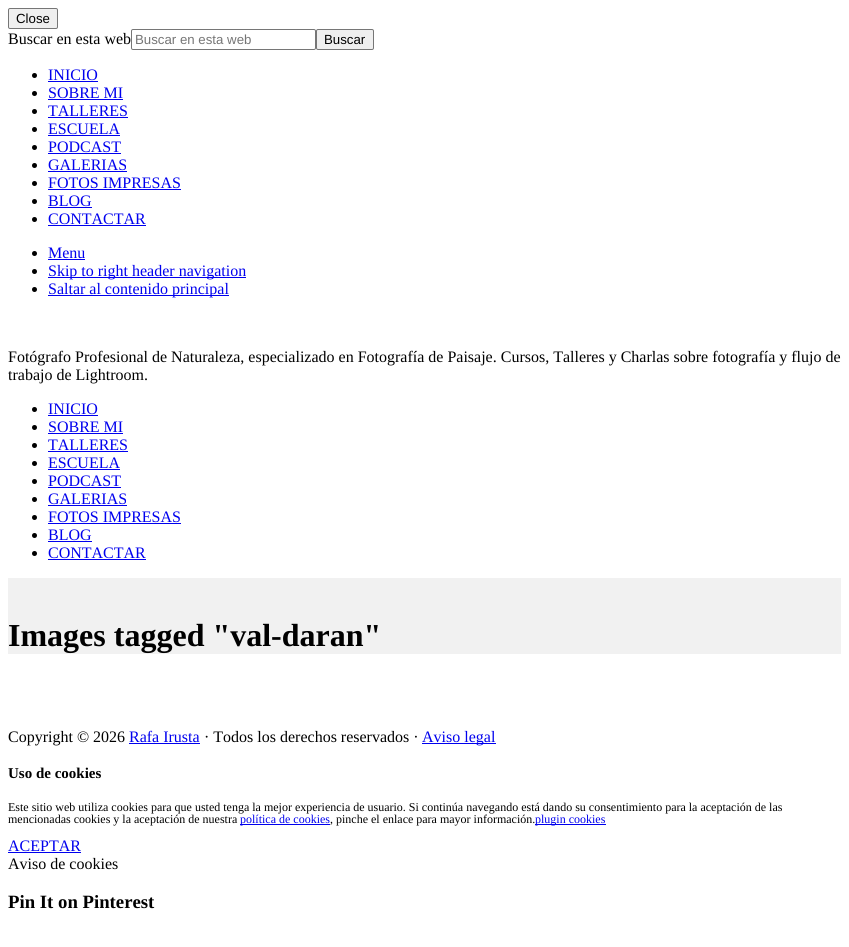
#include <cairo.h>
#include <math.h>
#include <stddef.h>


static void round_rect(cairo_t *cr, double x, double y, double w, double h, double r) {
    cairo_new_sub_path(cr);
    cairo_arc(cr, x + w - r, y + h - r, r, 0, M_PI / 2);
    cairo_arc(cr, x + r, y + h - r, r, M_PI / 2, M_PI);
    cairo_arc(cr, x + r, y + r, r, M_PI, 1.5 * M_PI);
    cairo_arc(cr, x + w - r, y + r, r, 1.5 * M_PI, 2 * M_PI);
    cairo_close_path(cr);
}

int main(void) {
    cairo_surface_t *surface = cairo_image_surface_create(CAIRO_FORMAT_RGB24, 849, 947);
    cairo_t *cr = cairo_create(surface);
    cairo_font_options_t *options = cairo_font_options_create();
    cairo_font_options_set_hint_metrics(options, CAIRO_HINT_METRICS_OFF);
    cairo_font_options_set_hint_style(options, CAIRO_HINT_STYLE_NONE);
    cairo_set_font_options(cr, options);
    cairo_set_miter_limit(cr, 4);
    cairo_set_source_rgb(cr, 1, 1, 1);
    cairo_paint(cr);
    cairo_set_source_rgb(cr, 0.937, 0.937, 0.937);
    round_rect(cr, 8.5, 8.5, 49, 20, 1.5);
    cairo_fill_preserve(cr);
    cairo_set_source_rgb(cr, 0.463, 0.463, 0.463);
    cairo_set_line_width(cr, 1);
    cairo_stroke(cr);
    cairo_select_font_face(cr, "Liberation Sans", CAIRO_FONT_SLANT_NORMAL, CAIRO_FONT_WEIGHT_NORMAL);
    cairo_set_font_size(cr, 13.25);
    cairo_set_source_rgb(cr, 0, 0, 0);
    cairo_move_to(cr, 16, 23);
    cairo_show_text(cr, "Close");
    cairo_select_font_face(cr, "Liberation Serif", CAIRO_FONT_SLANT_NORMAL, CAIRO_FONT_WEIGHT_NORMAL);
    cairo_set_font_size(cr, 16);
    cairo_move_to(cr, 8, 44);
    cairo_show_text(cr, "Buscar en esta web");
    round_rect(cr, 131.5, 29.5, 184, 20, 1.5);
    cairo_set_source_rgb(cr, 0.463, 0.463, 0.463);
    cairo_stroke(cr);
    cairo_select_font_face(cr, "Liberation Sans", CAIRO_FONT_SLANT_NORMAL, CAIRO_FONT_WEIGHT_NORMAL);
    cairo_set_font_size(cr, 13.25);
    cairo_set_source_rgb(cr, 0.459, 0.459, 0.459);
    cairo_move_to(cr, 135, 44);
    cairo_show_text(cr, "Buscar en esta web");
    cairo_set_source_rgb(cr, 0.937, 0.937, 0.937);
    round_rect(cr, 316.5, 29.5, 57, 20, 1.5);
    cairo_fill_preserve(cr);
    cairo_set_source_rgb(cr, 0.463, 0.463, 0.463);
    cairo_stroke(cr);
    cairo_set_source_rgb(cr, 0, 0, 0);
    cairo_move_to(cr, 324, 44);
    cairo_show_text(cr, "Buscar");
    cairo_new_path(cr);
    cairo_arc(cr, 34.5, 75.5, 2.5, 0, 2 * M_PI);
    cairo_fill(cr);
    cairo_select_font_face(cr, "Liberation Serif", CAIRO_FONT_SLANT_NORMAL, CAIRO_FONT_WEIGHT_NORMAL);
    cairo_set_font_size(cr, 16);
    cairo_set_source_rgb(cr, 0, 0, 0.933);
    cairo_move_to(cr, 48, 80);
    cairo_show_text(cr, "INICIO");
    cairo_rectangle(cr, 48, 81, 50, 1);
    cairo_fill(cr);
    cairo_set_source_rgb(cr, 0, 0, 0);
    cairo_arc(cr, 34.5, 93.5, 2.5, 0, 2 * M_PI);
    cairo_fill(cr);
    cairo_set_source_rgb(cr, 0, 0, 0.933);
    cairo_move_to(cr, 48, 98);
    cairo_show_text(cr, "SOBRE MI");
    cairo_rectangle(cr, 48, 99, 75, 1);
    cairo_fill(cr);
    cairo_set_source_rgb(cr, 0, 0, 0);
    cairo_arc(cr, 34.5, 111.5, 2.5, 0, 2 * M_PI);
    cairo_fill(cr);
    cairo_set_source_rgb(cr, 0, 0, 0.933);
    cairo_move_to(cr, 48, 116);
    cairo_show_text(cr, "TALLERES");
    cairo_rectangle(cr, 48, 117, 80, 1);
    cairo_fill(cr);
    cairo_set_source_rgb(cr, 0, 0, 0);
    cairo_arc(cr, 34.5, 129.5, 2.5, 0, 2 * M_PI);
    cairo_fill(cr);
    cairo_set_source_rgb(cr, 0, 0, 0.933);
    cairo_move_to(cr, 48, 134);
    cairo_show_text(cr, "ESCUELA");
    cairo_rectangle(cr, 48, 135, 72, 1);
    cairo_fill(cr);
    cairo_set_source_rgb(cr, 0, 0, 0);
    cairo_arc(cr, 34.5, 147.5, 2.5, 0, 2 * M_PI);
    cairo_fill(cr);
    cairo_set_source_rgb(cr, 0, 0, 0.933);
    cairo_move_to(cr, 48, 152);
    cairo_show_text(cr, "PODCAST");
    cairo_rectangle(cr, 48, 153, 73, 1);
    cairo_fill(cr);
    cairo_set_source_rgb(cr, 0, 0, 0);
    cairo_arc(cr, 34.5, 165.5, 2.5, 0, 2 * M_PI);
    cairo_fill(cr);
    cairo_set_source_rgb(cr, 0, 0, 0.933);
    cairo_move_to(cr, 48, 170);
    cairo_show_text(cr, "GALERIAS");
    cairo_rectangle(cr, 48, 171, 79, 1);
    cairo_fill(cr);
    cairo_set_source_rgb(cr, 0, 0, 0);
    cairo_arc(cr, 34.5, 183.5, 2.5, 0, 2 * M_PI);
    cairo_fill(cr);
    cairo_set_source_rgb(cr, 0, 0, 0.933);
    cairo_move_to(cr, 48, 188);
    cairo_show_text(cr, "FOTOS IMPRESAS");
    cairo_rectangle(cr, 48, 189, 133, 1);
    cairo_fill(cr);
    cairo_set_source_rgb(cr, 0, 0, 0);
    cairo_arc(cr, 34.5, 201.5, 2.5, 0, 2 * M_PI);
    cairo_fill(cr);
    cairo_set_source_rgb(cr, 0, 0, 0.933);
    cairo_move_to(cr, 48, 206);
    cairo_show_text(cr, "BLOG");
    cairo_rectangle(cr, 48, 207, 44, 1);
    cairo_fill(cr);
    cairo_set_source_rgb(cr, 0, 0, 0);
    cairo_arc(cr, 34.5, 219.5, 2.5, 0, 2 * M_PI);
    cairo_fill(cr);
    cairo_set_source_rgb(cr, 0, 0, 0.933);
    cairo_move_to(cr, 48, 224);
    cairo_show_text(cr, "CONTACTAR");
    cairo_rectangle(cr, 48, 225, 98, 1);
    cairo_fill(cr);
    cairo_set_source_rgb(cr, 0, 0, 0);
    cairo_arc(cr, 34.5, 253.5, 2.5, 0, 2 * M_PI);
    cairo_fill(cr);
    cairo_set_source_rgb(cr, 0, 0, 0.933);
    cairo_move_to(cr, 48, 258);
    cairo_show_text(cr, "Menu");
    cairo_rectangle(cr, 48, 259, 37, 1);
    cairo_fill(cr);
    cairo_set_source_rgb(cr, 0, 0, 0);
    cairo_arc(cr, 34.5, 271.5, 2.5, 0, 2 * M_PI);
    cairo_fill(cr);
    cairo_set_source_rgb(cr, 0, 0, 0.933);
    cairo_rectangle(cr, 48, 277, 198, 1);
    cairo_fill(cr);
    cairo_move_to(cr, 48, 276);
    cairo_show_text(cr, "Skip to right header navigation");
    cairo_set_source_rgb(cr, 0, 0, 0);
    cairo_new_path(cr);
    cairo_arc(cr, 34.5, 289.5, 2.5, 0, 2 * M_PI);
    cairo_fill(cr);
    cairo_set_source_rgb(cr, 0, 0, 0.933);
    cairo_rectangle(cr, 48, 295, 181, 1);
    cairo_fill(cr);
    cairo_move_to(cr, 48, 294);
    cairo_show_text(cr, "Saltar al contenido principal");
    cairo_set_source_rgb(cr, 0, 0, 0);
    cairo_move_to(cr, 8, 362);
    cairo_show_text(cr, "Fotógrafo Profesional de Naturaleza, especializado en Fotografía de Paisaje. Cursos, Talleres y Charlas sobre fotografía y flujo de");
    cairo_move_to(cr, 8, 380);
    cairo_show_text(cr, "trabajo de Lightroom.");
    cairo_new_path(cr);
    cairo_arc(cr, 34.5, 409.5, 2.5, 0, 2 * M_PI);
    cairo_fill(cr);
    cairo_set_source_rgb(cr, 0, 0, 0.933);
    cairo_move_to(cr, 48, 414);
    cairo_show_text(cr, "INICIO");
    cairo_rectangle(cr, 48, 415, 50, 1);
    cairo_fill(cr);
    cairo_set_source_rgb(cr, 0, 0, 0);
    cairo_arc(cr, 34.5, 427.5, 2.5, 0, 2 * M_PI);
    cairo_fill(cr);
    cairo_set_source_rgb(cr, 0, 0, 0.933);
    cairo_move_to(cr, 48, 432);
    cairo_show_text(cr, "SOBRE MI");
    cairo_rectangle(cr, 48, 433, 75, 1);
    cairo_fill(cr);
    cairo_set_source_rgb(cr, 0, 0, 0);
    cairo_arc(cr, 34.5, 445.5, 2.5, 0, 2 * M_PI);
    cairo_fill(cr);
    cairo_set_source_rgb(cr, 0, 0, 0.933);
    cairo_move_to(cr, 48, 450);
    cairo_show_text(cr, "TALLERES");
    cairo_rectangle(cr, 48, 451, 80, 1);
    cairo_fill(cr);
    cairo_set_source_rgb(cr, 0, 0, 0);
    cairo_arc(cr, 34.5, 463.5, 2.5, 0, 2 * M_PI);
    cairo_fill(cr);
    cairo_set_source_rgb(cr, 0, 0, 0.933);
    cairo_move_to(cr, 48, 468);
    cairo_show_text(cr, "ESCUELA");
    cairo_rectangle(cr, 48, 469, 72, 1);
    cairo_fill(cr);
    cairo_set_source_rgb(cr, 0, 0, 0);
    cairo_arc(cr, 34.5, 481.5, 2.5, 0, 2 * M_PI);
    cairo_fill(cr);
    cairo_set_source_rgb(cr, 0, 0, 0.933);
    cairo_move_to(cr, 48, 486);
    cairo_show_text(cr, "PODCAST");
    cairo_rectangle(cr, 48, 487, 73, 1);
    cairo_fill(cr);
    cairo_set_source_rgb(cr, 0, 0, 0);
    cairo_arc(cr, 34.5, 499.5, 2.5, 0, 2 * M_PI);
    cairo_fill(cr);
    cairo_set_source_rgb(cr, 0, 0, 0.933);
    cairo_move_to(cr, 48, 504);
    cairo_show_text(cr, "GALERIAS");
    cairo_rectangle(cr, 48, 505, 79, 1);
    cairo_fill(cr);
    cairo_set_source_rgb(cr, 0, 0, 0);
    cairo_arc(cr, 34.5, 517.5, 2.5, 0, 2 * M_PI);
    cairo_fill(cr);
    cairo_set_source_rgb(cr, 0, 0, 0.933);
    cairo_move_to(cr, 48, 522);
    cairo_show_text(cr, "FOTOS IMPRESAS");
    cairo_rectangle(cr, 48, 523, 133, 1);
    cairo_fill(cr);
    cairo_set_source_rgb(cr, 0, 0, 0);
    cairo_arc(cr, 34.5, 535.5, 2.5, 0, 2 * M_PI);
    cairo_fill(cr);
    cairo_set_source_rgb(cr, 0, 0, 0.933);
    cairo_move_to(cr, 48, 540);
    cairo_show_text(cr, "BLOG");
    cairo_rectangle(cr, 48, 541, 44, 1);
    cairo_fill(cr);
    cairo_set_source_rgb(cr, 0, 0, 0);
    cairo_arc(cr, 34.5, 553.5, 2.5, 0, 2 * M_PI);
    cairo_fill(cr);
    cairo_set_source_rgb(cr, 0, 0, 0.933);
    cairo_move_to(cr, 48, 558);
    cairo_show_text(cr, "CONTACTAR");
    cairo_rectangle(cr, 48, 559, 98, 1);
    cairo_fill(cr);
    cairo_set_source_rgb(cr, 0.945, 0.945, 0.945);
    cairo_rectangle(cr, 8, 578, 833, 76);
    cairo_fill(cr);
    cairo_select_font_face(cr, "Liberation Serif", CAIRO_FONT_SLANT_NORMAL, CAIRO_FONT_WEIGHT_BOLD);
    cairo_set_font_size(cr, 32);
    cairo_set_source_rgb(cr, 0, 0, 0);
    cairo_move_to(cr, 8, 646);
    cairo_show_text(cr, "Images tagged \"val-daran\"");
    cairo_select_font_face(cr, "Liberation Serif", CAIRO_FONT_SLANT_NORMAL, CAIRO_FONT_WEIGHT_NORMAL);
    cairo_set_font_size(cr, 16);
    cairo_move_to(cr, 8, 742);
    cairo_show_text(cr, "Copyright © 2026");
    cairo_set_source_rgb(cr, 0, 0, 0.933);
    cairo_move_to(cr, 129, 742);
    cairo_show_text(cr, "Rafa Irusta");
    cairo_rectangle(cr, 129, 743, 71, 1);
    cairo_fill(cr);
    cairo_set_source_rgb(cr, 0, 0, 0);
    cairo_move_to(cr, 204, 742);
    cairo_show_text(cr, "· Todos los derechos reservados ·");
    cairo_set_source_rgb(cr, 0, 0, 0.933);
    cairo_rectangle(cr, 422, 743, 74, 1);
    cairo_fill(cr);
    cairo_move_to(cr, 422, 742);
    cairo_show_text(cr, "Aviso legal");
    cairo_select_font_face(cr, "Liberation Serif", CAIRO_FONT_SLANT_NORMAL, CAIRO_FONT_WEIGHT_BOLD);
    cairo_set_font_size(cr, 15);
    cairo_set_source_rgb(cr, 0, 0, 0);
    cairo_move_to(cr, 8, 778);
    cairo_show_text(cr, "Uso de cookies");
    cairo_select_font_face(cr, "Liberation Serif", CAIRO_FONT_SLANT_NORMAL, CAIRO_FONT_WEIGHT_NORMAL);
    cairo_set_font_size(cr, 12);
    cairo_move_to(cr, 8, 811);
    cairo_show_text(cr, "Este sitio web utiliza cookies para que usted tenga la mejor experiencia de usuario. Si continúa navegando está dando su consentimiento para la aceptación de las");
    cairo_move_to(cr, 8, 823);
    cairo_show_text(cr, "mencionadas cookies y la aceptación de nuestra");
    cairo_set_source_rgb(cr, 0, 0, 0.933);
    cairo_rectangle(cr, 240, 824, 90, 1);
    cairo_fill(cr);
    cairo_move_to(cr, 240, 823);
    cairo_show_text(cr, "política de cookies");
    cairo_set_source_rgb(cr, 0, 0, 0);
    cairo_move_to(cr, 330, 823);
    cairo_show_text(cr, ", pinche el enlace para mayor información.");
    cairo_set_source_rgb(cr, 0, 0, 0.933);
    cairo_rectangle(cr, 535, 824, 71, 1);
    cairo_fill(cr);
    cairo_move_to(cr, 535, 823);
    cairo_show_text(cr, "plugin cookies");
    cairo_set_font_size(cr, 16);
    cairo_move_to(cr, 8, 851);
    cairo_show_text(cr, "ACEPTAR");
    cairo_rectangle(cr, 8, 852, 73, 1);
    cairo_fill(cr);
    cairo_set_source_rgb(cr, 0, 0, 0);
    cairo_move_to(cr, 8, 869);
    cairo_show_text(cr, "Aviso de cookies");
    cairo_select_font_face(cr, "Liberation Serif", CAIRO_FONT_SLANT_NORMAL, CAIRO_FONT_WEIGHT_BOLD);
    cairo_set_font_size(cr, 18.75);
    cairo_move_to(cr, 8, 908);
    cairo_show_text(cr, "Pin It on Pinterest");
    cairo_surface_write_to_png(surface, "page.png");
    cairo_font_options_destroy(options);
    cairo_destroy(cr);
    cairo_surface_destroy(surface);
    return 0;
}
